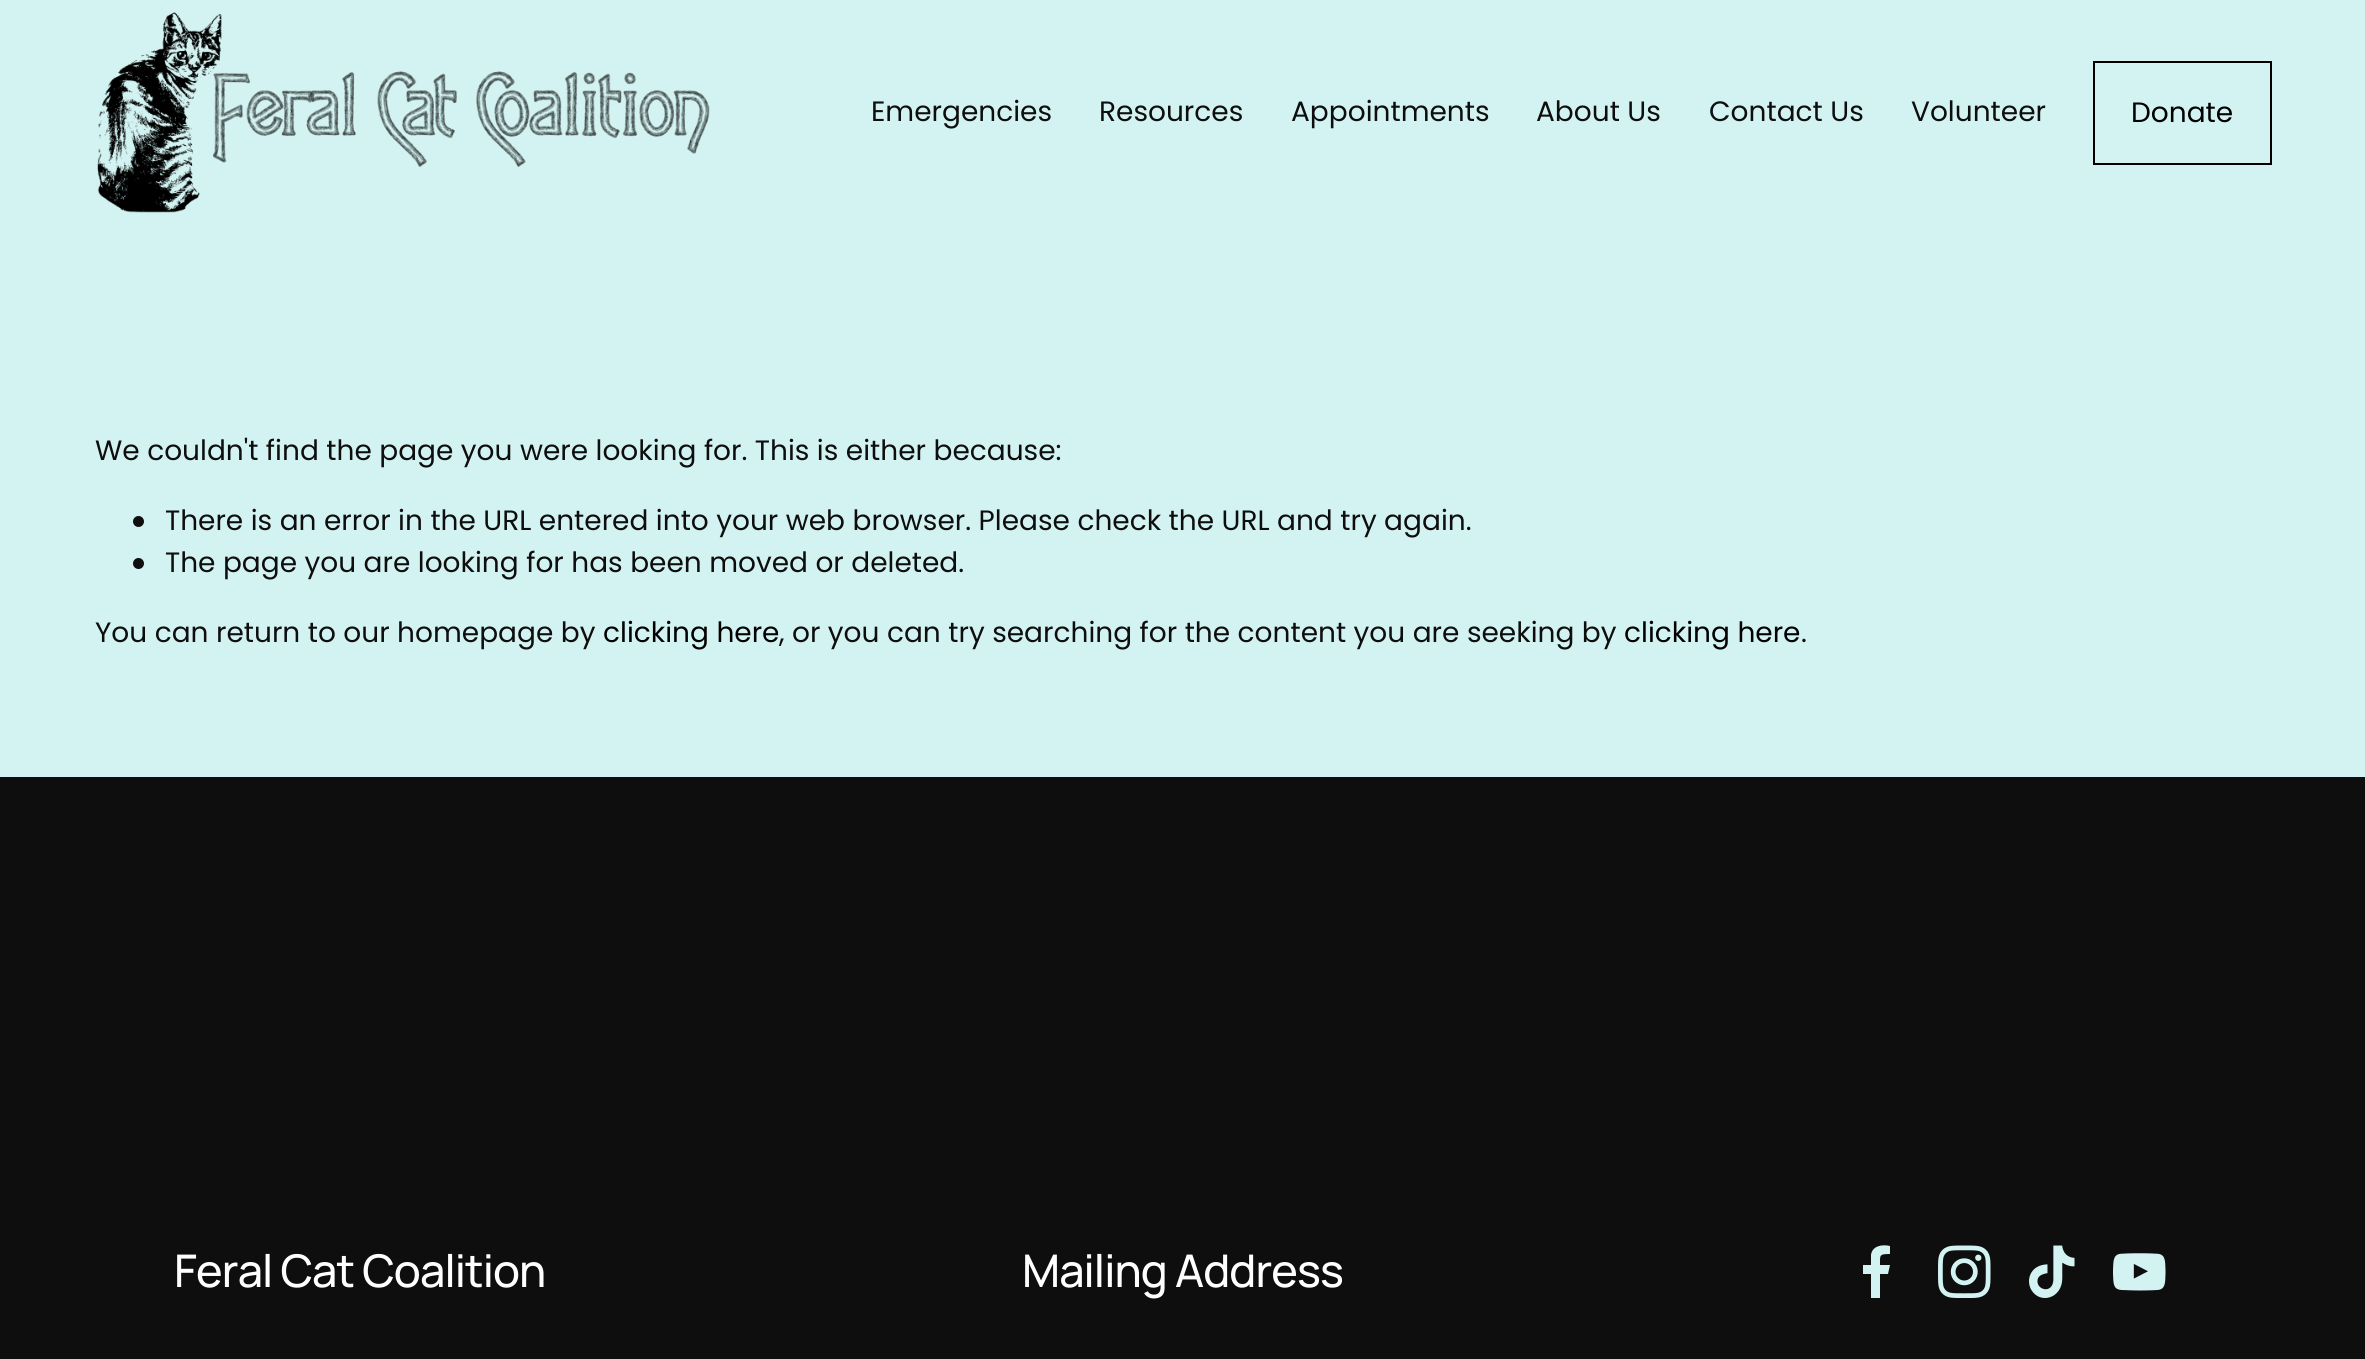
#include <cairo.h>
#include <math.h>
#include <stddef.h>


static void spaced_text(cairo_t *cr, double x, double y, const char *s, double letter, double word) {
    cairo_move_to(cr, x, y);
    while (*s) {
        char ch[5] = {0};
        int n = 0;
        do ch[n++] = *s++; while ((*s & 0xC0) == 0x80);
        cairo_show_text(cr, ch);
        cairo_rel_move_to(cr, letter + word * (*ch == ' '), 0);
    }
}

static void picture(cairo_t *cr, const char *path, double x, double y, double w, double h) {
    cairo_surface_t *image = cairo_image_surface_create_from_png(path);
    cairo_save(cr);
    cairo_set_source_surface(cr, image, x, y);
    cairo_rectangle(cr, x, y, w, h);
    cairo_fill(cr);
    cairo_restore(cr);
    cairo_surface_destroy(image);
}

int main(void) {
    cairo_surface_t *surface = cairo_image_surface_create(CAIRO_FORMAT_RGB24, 2365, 1359);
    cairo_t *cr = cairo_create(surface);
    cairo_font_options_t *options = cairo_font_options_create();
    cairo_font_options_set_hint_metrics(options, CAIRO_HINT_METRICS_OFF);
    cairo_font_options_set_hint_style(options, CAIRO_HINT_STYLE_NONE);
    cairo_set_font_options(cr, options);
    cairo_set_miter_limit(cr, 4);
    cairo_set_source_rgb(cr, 0.827, 0.953, 0.949);
    cairo_paint(cr);
    picture(cr, "img1.png", 97, 12, 613, 201);
    cairo_select_font_face(cr, "Poppins", CAIRO_FONT_SLANT_NORMAL, CAIRO_FONT_WEIGHT_NORMAL);
    cairo_set_font_size(cr, 28);
    cairo_set_source_rgb(cr, 0.055, 0.055, 0.055);
    cairo_move_to(cr, 871, 121);
    cairo_show_text(cr, "Emergencies");
    cairo_move_to(cr, 1099, 121);
    cairo_show_text(cr, "Resources");
    cairo_move_to(cr, 1291, 121);
    cairo_show_text(cr, "Appointments");
    cairo_move_to(cr, 1536, 121);
    cairo_show_text(cr, "About Us");
    cairo_move_to(cr, 1709, 121);
    cairo_show_text(cr, "Contact Us");
    cairo_move_to(cr, 1911, 121);
    cairo_show_text(cr, "Volunteer");
    cairo_rectangle(cr, 2094, 62, 177, 102);
    cairo_set_source_rgb(cr, 0, 0, 0);
    cairo_stroke(cr);
    cairo_move_to(cr, 2131, 122);
    cairo_show_text(cr, "Donate");
    cairo_set_source_rgb(cr, 0.055, 0.055, 0.055);
    cairo_move_to(cr, 95, 460);
    cairo_show_text(cr, "We couldn't find the page you were looking for. This is either because:");
    cairo_new_path(cr);
    cairo_arc(cr, 138.5, 521.5, 5.5, 0, 2 * M_PI);
    cairo_fill(cr);
    cairo_move_to(cr, 165, 530);
    cairo_show_text(cr, "There is an error in the URL entered into your web browser. Please check the URL and try again.");
    cairo_new_path(cr);
    cairo_arc(cr, 138.5, 563.5, 5.5, 0, 2 * M_PI);
    cairo_fill(cr);
    cairo_move_to(cr, 165, 572);
    cairo_show_text(cr, "The page you are looking for has been moved or deleted.");
    cairo_move_to(cr, 95, 642);
    cairo_show_text(cr, "You can return to our homepage by");
    cairo_set_source_rgb(cr, 0, 0, 0);
    cairo_move_to(cr, 603, 642);
    cairo_show_text(cr, "clicking here");
    cairo_set_source_rgb(cr, 0.055, 0.055, 0.055);
    cairo_move_to(cr, 779, 642);
    cairo_show_text(cr, ", or you can try searching for the content you are seeking by");
    cairo_set_source_rgb(cr, 0, 0, 0);
    cairo_move_to(cr, 1624, 642);
    cairo_show_text(cr, "clicking here");
    cairo_set_source_rgb(cr, 0.055, 0.055, 0.055);
    cairo_move_to(cr, 1801, 642);
    cairo_show_text(cr, ".");
    cairo_rectangle(cr, 0, 777, 2365, 582);
    cairo_fill(cr);
    cairo_select_font_face(cr, "Manrope Medium", CAIRO_FONT_SLANT_NORMAL, CAIRO_FONT_WEIGHT_NORMAL);
    cairo_set_font_size(cr, 45);
    cairo_set_source_rgb(cr, 1, 1, 1);
    spaced_text(cr, 174, 1287, "Feral Cat Coalition", -0.9, 0);
    spaced_text(cr, 1022, 1287, "Mailing Address", -0.9, 0);
    cairo_set_source_rgb(cr, 0.827, 0.953, 0.949);
    cairo_new_path(cr);
    cairo_move_to(cr, 1880, 1298);
    cairo_line_to(cr, 1880, 1274);
    cairo_line_to(cr, 1888, 1274);
    cairo_line_to(cr, 1890, 1265);
    cairo_line_to(cr, 1880, 1265);
    cairo_curve_to(cr, 1880, 1255, 1879, 1254, 1890, 1254);
    cairo_line_to(cr, 1890, 1246);
    cairo_curve_to(cr, 1882, 1244, 1872, 1246, 1871, 1255);
    cairo_line_to(cr, 1871, 1265);
    cairo_line_to(cr, 1863, 1265);
    cairo_line_to(cr, 1863, 1274);
    cairo_line_to(cr, 1871, 1274);
    cairo_line_to(cr, 1871, 1298);
    cairo_close_path(cr);
    cairo_fill(cr);
    picture(cr, "img2.png", 1938, 1245, 53, 54);
    picture(cr, "img3.png", 2029, 1245, 46, 53);
    picture(cr, "img4.png", 2113, 1253, 53, 38);
    cairo_surface_write_to_png(surface, "page.png");
    cairo_font_options_destroy(options);
    cairo_destroy(cr);
    cairo_surface_destroy(surface);
    return 0;
}
